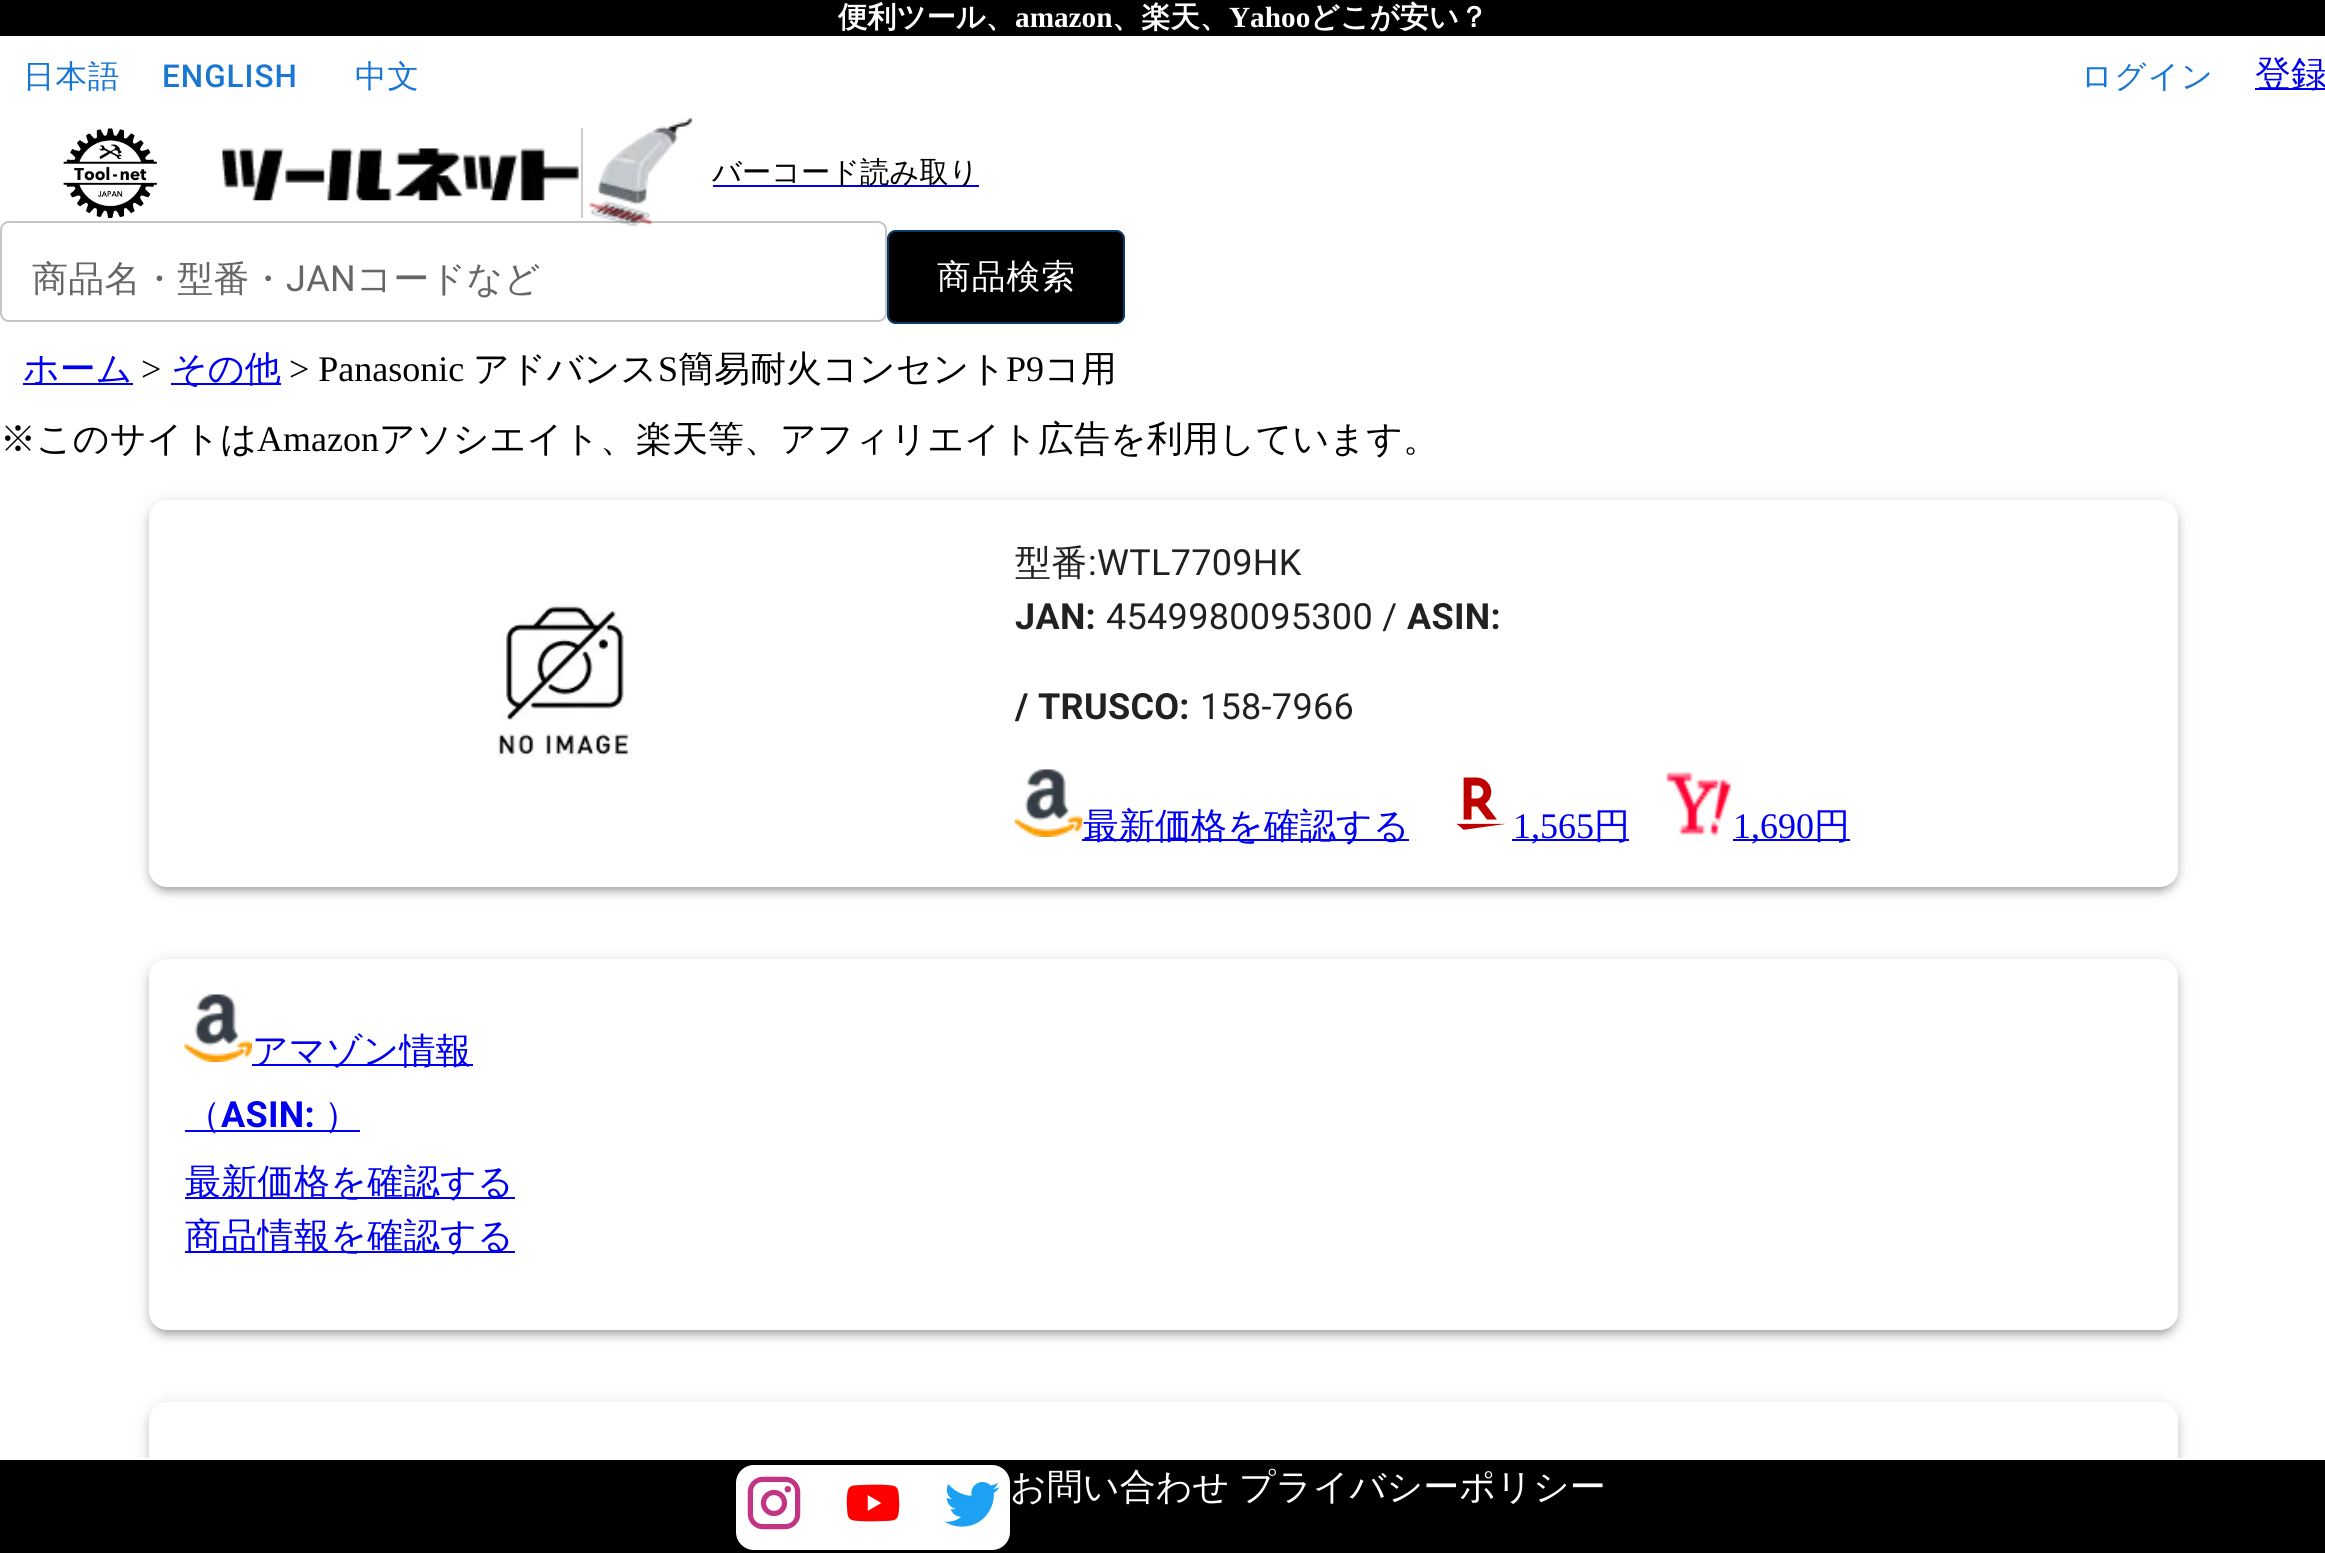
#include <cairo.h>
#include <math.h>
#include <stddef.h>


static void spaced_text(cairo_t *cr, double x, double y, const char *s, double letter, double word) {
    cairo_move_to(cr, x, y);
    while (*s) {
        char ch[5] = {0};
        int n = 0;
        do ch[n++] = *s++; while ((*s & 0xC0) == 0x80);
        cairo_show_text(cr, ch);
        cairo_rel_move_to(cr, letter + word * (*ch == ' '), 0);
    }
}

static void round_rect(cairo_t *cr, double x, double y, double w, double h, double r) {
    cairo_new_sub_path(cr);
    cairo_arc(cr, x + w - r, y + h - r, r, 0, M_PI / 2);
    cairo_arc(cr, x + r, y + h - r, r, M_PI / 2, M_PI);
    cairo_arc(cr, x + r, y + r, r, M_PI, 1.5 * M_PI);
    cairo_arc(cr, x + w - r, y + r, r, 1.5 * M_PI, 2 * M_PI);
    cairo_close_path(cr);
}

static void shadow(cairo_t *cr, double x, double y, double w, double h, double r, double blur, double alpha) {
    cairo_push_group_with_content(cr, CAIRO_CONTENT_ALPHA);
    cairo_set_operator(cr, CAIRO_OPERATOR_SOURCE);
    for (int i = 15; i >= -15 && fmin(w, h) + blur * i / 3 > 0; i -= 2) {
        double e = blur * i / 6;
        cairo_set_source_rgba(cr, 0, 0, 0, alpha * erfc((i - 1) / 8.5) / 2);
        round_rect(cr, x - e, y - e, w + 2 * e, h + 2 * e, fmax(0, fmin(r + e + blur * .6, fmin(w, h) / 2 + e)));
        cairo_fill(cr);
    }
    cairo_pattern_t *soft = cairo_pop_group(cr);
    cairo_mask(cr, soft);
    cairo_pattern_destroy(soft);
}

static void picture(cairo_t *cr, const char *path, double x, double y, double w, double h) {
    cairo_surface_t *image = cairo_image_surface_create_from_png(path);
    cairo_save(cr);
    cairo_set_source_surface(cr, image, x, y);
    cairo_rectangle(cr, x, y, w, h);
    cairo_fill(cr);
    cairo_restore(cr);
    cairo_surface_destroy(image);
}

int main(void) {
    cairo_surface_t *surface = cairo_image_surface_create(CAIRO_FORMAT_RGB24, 2325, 1553);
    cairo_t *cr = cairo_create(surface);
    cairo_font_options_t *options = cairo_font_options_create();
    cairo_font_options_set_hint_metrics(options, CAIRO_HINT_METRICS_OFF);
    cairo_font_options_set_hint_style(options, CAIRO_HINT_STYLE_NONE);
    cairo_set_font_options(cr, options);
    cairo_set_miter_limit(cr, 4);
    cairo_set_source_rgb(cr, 1, 1, 1);
    cairo_paint(cr);
    cairo_set_source_rgb(cr, 0, 0, 0);
    cairo_rectangle(cr, 0, 0, 2325, 36);
    cairo_fill(cr);
    cairo_select_font_face(cr, "WenQuanYi Zen Hei", CAIRO_FONT_SLANT_NORMAL, CAIRO_FONT_WEIGHT_BOLD);
    cairo_set_font_size(cr, 29.25);
    cairo_set_source_rgb(cr, 1, 1, 1);
    cairo_move_to(cr, 838, 27);
    cairo_show_text(cr, "便利ツール、");
    cairo_select_font_face(cr, "Liberation Serif", CAIRO_FONT_SLANT_NORMAL, CAIRO_FONT_WEIGHT_BOLD);
    cairo_move_to(cr, 1015, 27);
    cairo_show_text(cr, "amazon");
    cairo_select_font_face(cr, "WenQuanYi Zen Hei", CAIRO_FONT_SLANT_NORMAL, CAIRO_FONT_WEIGHT_BOLD);
    cairo_move_to(cr, 1112, 27);
    cairo_show_text(cr, "、楽天、");
    cairo_select_font_face(cr, "Liberation Serif", CAIRO_FONT_SLANT_NORMAL, CAIRO_FONT_WEIGHT_BOLD);
    cairo_move_to(cr, 1229, 27);
    cairo_show_text(cr, "Yahoo");
    cairo_select_font_face(cr, "WenQuanYi Zen Hei", CAIRO_FONT_SLANT_NORMAL, CAIRO_FONT_WEIGHT_BOLD);
    cairo_move_to(cr, 1310, 27);
    cairo_show_text(cr, "どこが安い？");
    cairo_select_font_face(cr, "WenQuanYi Zen Hei Medium", CAIRO_FONT_SLANT_NORMAL, CAIRO_FONT_WEIGHT_NORMAL);
    cairo_set_font_size(cr, 31.5);
    cairo_set_source_rgb(cr, 0.098, 0.463, 0.824);
    spaced_text(cr, 23, 87, "日本語", 1, 0);
    cairo_select_font_face(cr, "Roboto Medium", CAIRO_FONT_SLANT_NORMAL, CAIRO_FONT_WEIGHT_NORMAL);
    spaced_text(cr, 162, 87, "ENGLISH", 1, 0);
    cairo_select_font_face(cr, "WenQuanYi Zen Hei Medium", CAIRO_FONT_SLANT_NORMAL, CAIRO_FONT_WEIGHT_NORMAL);
    spaced_text(cr, 355, 87, "中文", 1, 0);
    spaced_text(cr, 2081, 87, "ログイン", 1, 0);
    cairo_set_source_rgb(cr, 0, 0, 0.933);
    cairo_rectangle(cr, 2255, 88, 70, 2);
    cairo_fill(cr);
    cairo_set_font_size(cr, 36);
    cairo_move_to(cr, 2255, 86);
    cairo_show_text(cr, "登録");
    cairo_set_source_rgb(cr, 0.8, 0.8, 0.8);
    cairo_rectangle(cr, 581, 128, 2, 90);
    cairo_fill(cr);
    picture(cr, "img1.png", 63, 128, 94, 90);
    picture(cr, "img2.png", 222, 148, 358, 53);
    picture(cr, "img3.png", 589, 117, 104, 110);
    cairo_set_source_rgb(cr, 0, 0, 0.933);
    cairo_rectangle(cr, 713, 185, 266, 2);
    cairo_fill(cr);
    cairo_set_font_size(cr, 29.25);
    cairo_set_source_rgb(cr, 0, 0, 0);
    cairo_move_to(cr, 712, 182);
    cairo_show_text(cr, "バーコード読み取り");
    round_rect(cr, 1, 222, 885, 99, 8);
    cairo_set_source_rgba(cr, 0, 0, 0, 0.23);
    cairo_stroke(cr);
    cairo_set_font_size(cr, 36);
    cairo_set_source_rgb(cr, 0.4, 0.4, 0.4);
    spaced_text(cr, 32, 291, "商品名・型番・", 0.3, 0);
    cairo_select_font_face(cr, "Roboto", CAIRO_FONT_SLANT_NORMAL, CAIRO_FONT_WEIGHT_NORMAL);
    spaced_text(cr, 286, 291, "JAN", 0.3, 0);
    cairo_select_font_face(cr, "WenQuanYi Zen Hei Medium", CAIRO_FONT_SLANT_NORMAL, CAIRO_FONT_WEIGHT_NORMAL);
    spaced_text(cr, 356, 291, "コードなど", 0.3, 0);
    cairo_set_source_rgb(cr, 0, 0, 0);
    round_rect(cr, 887, 230, 238, 94, 9);
    cairo_fill(cr);
    round_rect(cr, 888, 231, 236, 92, 8);
    cairo_set_source_rgba(cr, 0.098, 0.463, 0.824, 0.5);
    cairo_stroke(cr);
    cairo_set_font_size(cr, 33.75);
    cairo_set_source_rgb(cr, 1, 1, 1);
    spaced_text(cr, 937, 288, "商品検索", 1, 0);
    cairo_set_source_rgb(cr, 0, 0, 0.933);
    cairo_rectangle(cr, 23, 383, 110, 2);
    cairo_fill(cr);
    cairo_set_font_size(cr, 36);
    cairo_move_to(cr, 23, 381);
    cairo_show_text(cr, "ホーム");
    cairo_select_font_face(cr, "Liberation Serif", CAIRO_FONT_SLANT_NORMAL, CAIRO_FONT_WEIGHT_NORMAL);
    cairo_set_source_rgb(cr, 0, 0, 0);
    cairo_move_to(cr, 141, 381);
    cairo_show_text(cr, ">");
    cairo_set_source_rgb(cr, 0, 0, 0.933);
    cairo_rectangle(cr, 171, 383, 110, 2);
    cairo_fill(cr);
    cairo_select_font_face(cr, "WenQuanYi Zen Hei Medium", CAIRO_FONT_SLANT_NORMAL, CAIRO_FONT_WEIGHT_NORMAL);
    cairo_move_to(cr, 171, 381);
    cairo_show_text(cr, "その他");
    cairo_select_font_face(cr, "Liberation Serif", CAIRO_FONT_SLANT_NORMAL, CAIRO_FONT_WEIGHT_NORMAL);
    cairo_set_source_rgb(cr, 0, 0, 0);
    cairo_move_to(cr, 289, 381);
    cairo_show_text(cr, "> Panasonic");
    cairo_select_font_face(cr, "WenQuanYi Zen Hei Medium", CAIRO_FONT_SLANT_NORMAL, CAIRO_FONT_WEIGHT_NORMAL);
    cairo_move_to(cr, 473, 381);
    cairo_show_text(cr, "アドバンス");
    cairo_select_font_face(cr, "Liberation Serif", CAIRO_FONT_SLANT_NORMAL, CAIRO_FONT_WEIGHT_NORMAL);
    cairo_move_to(cr, 658, 381);
    cairo_show_text(cr, "S");
    cairo_select_font_face(cr, "WenQuanYi Zen Hei Medium", CAIRO_FONT_SLANT_NORMAL, CAIRO_FONT_WEIGHT_NORMAL);
    cairo_move_to(cr, 678, 381);
    cairo_show_text(cr, "簡易耐火コンセント");
    cairo_select_font_face(cr, "Liberation Serif", CAIRO_FONT_SLANT_NORMAL, CAIRO_FONT_WEIGHT_NORMAL);
    cairo_move_to(cr, 1006, 381);
    cairo_show_text(cr, "P9");
    cairo_select_font_face(cr, "WenQuanYi Zen Hei Medium", CAIRO_FONT_SLANT_NORMAL, CAIRO_FONT_WEIGHT_NORMAL);
    cairo_move_to(cr, 1044, 381);
    cairo_show_text(cr, "コ用");
    cairo_move_to(cr, 0, 451);
    cairo_show_text(cr, "※このサイトは");
    cairo_select_font_face(cr, "Liberation Serif", CAIRO_FONT_SLANT_NORMAL, CAIRO_FONT_WEIGHT_NORMAL);
    cairo_move_to(cr, 257, 451);
    cairo_show_text(cr, "Amazon");
    cairo_select_font_face(cr, "WenQuanYi Zen Hei Medium", CAIRO_FONT_SLANT_NORMAL, CAIRO_FONT_WEIGHT_NORMAL);
    cairo_move_to(cr, 379, 451);
    cairo_show_text(cr, "アソシエイト、楽天等、アフィリエイト広告を利用しています。");
    cairo_set_source_rgb(cr, 0, 0, 0);
    shadow(cr, 149, 502, 2029, 387, 18, 9, 0.12);
    shadow(cr, 149, 506, 2029, 387, 18, 4.5, 0.14);
    shadow(cr, 153, 511, 2021, 378, 14, 3.5, 0.2);
    cairo_set_source_rgb(cr, 1, 1, 1);
    round_rect(cr, 149, 500, 2029, 387, 18);
    cairo_fill(cr);
    picture(cr, "img4.png", 497, 602, 135, 156);
    cairo_set_source_rgb(cr, 0.129, 0.129, 0.129);
    spaced_text(cr, 1015, 575, "型番", 0.3, 0);
    cairo_select_font_face(cr, "Roboto", CAIRO_FONT_SLANT_NORMAL, CAIRO_FONT_WEIGHT_NORMAL);
    spaced_text(cr, 1088, 575, ":WTL7709HK", 0.3, 0);
    cairo_select_font_face(cr, "Roboto", CAIRO_FONT_SLANT_NORMAL, CAIRO_FONT_WEIGHT_BOLD);
    spaced_text(cr, 1015, 629, "JAN:", 0.3, 0);
    cairo_select_font_face(cr, "Roboto", CAIRO_FONT_SLANT_NORMAL, CAIRO_FONT_WEIGHT_NORMAL);
    spaced_text(cr, 1106, 629, "4549980095300 /", 0.3, 0);
    cairo_select_font_face(cr, "Roboto", CAIRO_FONT_SLANT_NORMAL, CAIRO_FONT_WEIGHT_BOLD);
    spaced_text(cr, 1407, 629, "ASIN:", 0.3, 0);
    spaced_text(cr, 1015, 719, "/ TRUSCO:", 0.3, 0);
    cairo_select_font_face(cr, "Roboto", CAIRO_FONT_SLANT_NORMAL, CAIRO_FONT_WEIGHT_NORMAL);
    spaced_text(cr, 1200, 719, "158-7966", 0.3, 0);
    picture(cr, "img5.png", 1014, 769, 69, 68);
    cairo_set_source_rgb(cr, 0, 0, 0.933);
    cairo_rectangle(cr, 1082, 839, 327, 2);
    cairo_fill(cr);
    cairo_select_font_face(cr, "WenQuanYi Zen Hei Medium", CAIRO_FONT_SLANT_NORMAL, CAIRO_FONT_WEIGHT_NORMAL);
    cairo_move_to(cr, 1083, 838);
    cairo_show_text(cr, "最新価格を確認する");
    picture(cr, "img6.png", 1456, 777, 50, 53);
    cairo_rectangle(cr, 1512, 839, 117, 2);
    cairo_fill(cr);
    cairo_select_font_face(cr, "Liberation Serif", CAIRO_FONT_SLANT_NORMAL, CAIRO_FONT_WEIGHT_NORMAL);
    cairo_move_to(cr, 1513, 838);
    cairo_show_text(cr, "1,565");
    cairo_select_font_face(cr, "WenQuanYi Zen Hei Medium", CAIRO_FONT_SLANT_NORMAL, CAIRO_FONT_WEIGHT_NORMAL);
    cairo_move_to(cr, 1594, 838);
    cairo_show_text(cr, "円");
    picture(cr, "img7.png", 1665, 772, 66, 65);
    cairo_rectangle(cr, 1733, 839, 117, 2);
    cairo_fill(cr);
    cairo_select_font_face(cr, "Liberation Serif", CAIRO_FONT_SLANT_NORMAL, CAIRO_FONT_WEIGHT_NORMAL);
    cairo_move_to(cr, 1733, 838);
    cairo_show_text(cr, "1,690");
    cairo_select_font_face(cr, "WenQuanYi Zen Hei Medium", CAIRO_FONT_SLANT_NORMAL, CAIRO_FONT_WEIGHT_NORMAL);
    cairo_move_to(cr, 1814, 838);
    cairo_show_text(cr, "円");
    cairo_set_source_rgb(cr, 0, 0, 0);
    shadow(cr, 149, 961, 2029, 371, 18, 9, 0.12);
    shadow(cr, 149, 965, 2029, 372, 18, 4.5, 0.14);
    shadow(cr, 153, 970, 2021, 362, 14, 3.5, 0.2);
    cairo_set_source_rgb(cr, 1, 1, 1);
    round_rect(cr, 149, 959, 2029, 371, 18);
    cairo_fill(cr);
    picture(cr, "img8.png", 184, 994, 68, 68);
    cairo_set_source_rgb(cr, 0, 0, 0.933);
    cairo_rectangle(cr, 252, 1064, 221, 2);
    cairo_fill(cr);
    cairo_move_to(cr, 252, 1063);
    cairo_show_text(cr, "アマゾン情報");
    cairo_rectangle(cr, 185, 1130, 175, 2);
    cairo_fill(cr);
    spaced_text(cr, 185, 1127, "（", 0.3, 0);
    cairo_select_font_face(cr, "Roboto", CAIRO_FONT_SLANT_NORMAL, CAIRO_FONT_WEIGHT_BOLD);
    spaced_text(cr, 221, 1127, "ASIN:", 0.3, 0);
    cairo_select_font_face(cr, "WenQuanYi Zen Hei Medium", CAIRO_FONT_SLANT_NORMAL, CAIRO_FONT_WEIGHT_NORMAL);
    spaced_text(cr, 324, 1127, "）", 0.3, 0);
    cairo_rectangle(cr, 185, 1197, 330, 2);
    cairo_fill(cr);
    spaced_text(cr, 185, 1194, "最新価格を確認する", 0.3, 0);
    cairo_rectangle(cr, 185, 1251, 330, 2);
    cairo_fill(cr);
    spaced_text(cr, 185, 1248, "商品情報を確認する", 0.3, 0);
    cairo_set_source_rgb(cr, 0, 0, 0);
    shadow(cr, 149, 1404, 2029, 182, 18, 9, 0.12);
    shadow(cr, 149, 1409, 2029, 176, 18, 4.5, 0.14);
    cairo_set_source_rgb(cr, 1, 1, 1);
    round_rect(cr, 149, 1402, 2029, 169, 18);
    cairo_fill(cr);
    cairo_set_source_rgb(cr, 0, 0, 0);
    cairo_rectangle(cr, 0, 1460, 2325, 93);
    cairo_fill(cr);
    cairo_set_source_rgb(cr, 1, 1, 1);
    cairo_rectangle(cr, 136, 1458, 2055, 2);
    cairo_fill(cr);
    round_rect(cr, 736, 1465, 274, 85, 18);
    cairo_fill(cr);
    picture(cr, "img9.png", 747, 1476, 54, 54);
    picture(cr, "img10.png", 846, 1484, 54, 38);
    picture(cr, "img11.png", 944, 1482, 56, 45);
    cairo_move_to(cr, 1010, 1499);
    cairo_show_text(cr, "お問い合わせ");
    cairo_move_to(cr, 1239, 1499);
    cairo_show_text(cr, "プライバシーポリシー");
    cairo_surface_write_to_png(surface, "page.png");
    cairo_font_options_destroy(options);
    cairo_destroy(cr);
    cairo_surface_destroy(surface);
    return 0;
}
